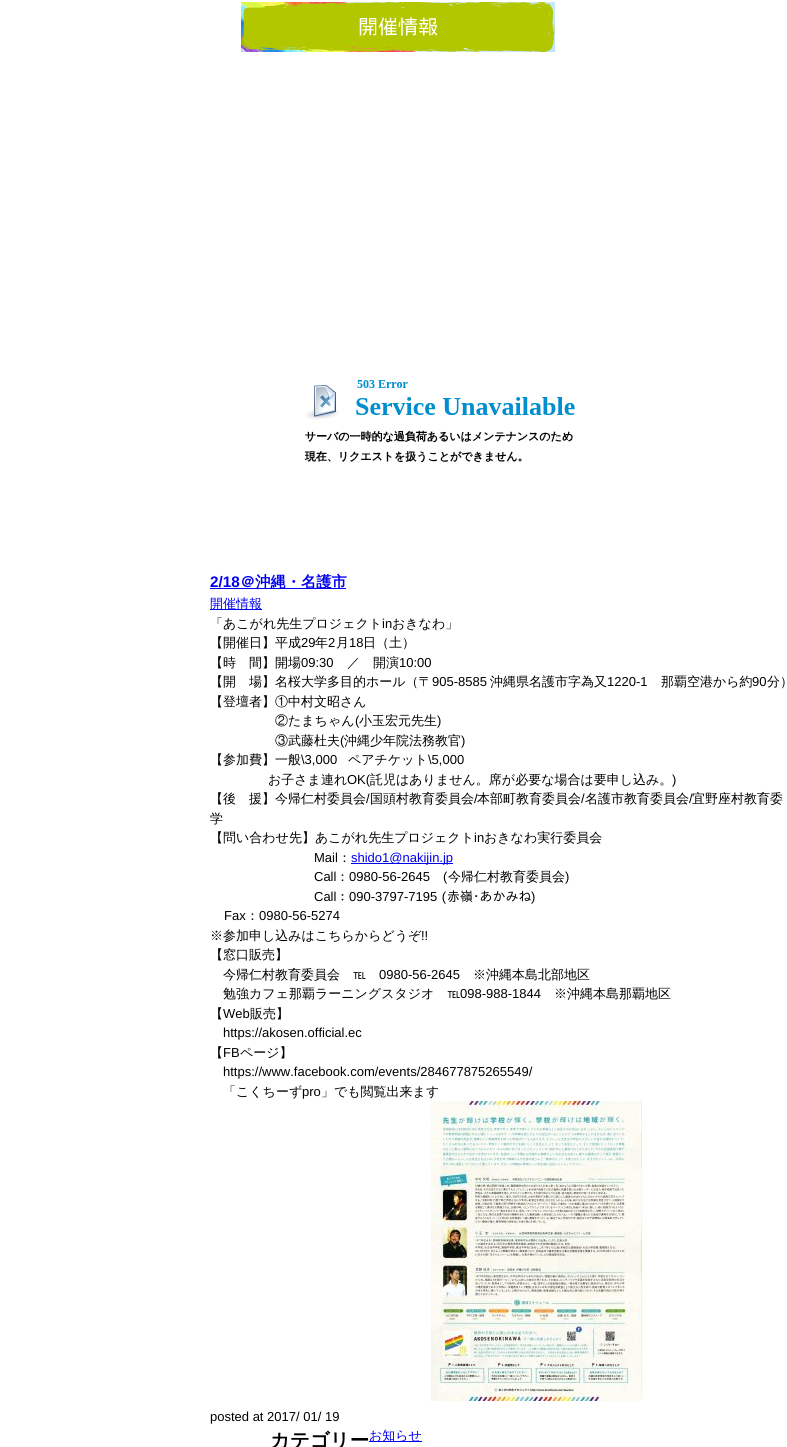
#include <cairo.h>
#include <math.h>
#include <stddef.h>


static void spaced_text(cairo_t *cr, double x, double y, const char *s, double letter, double word) {
    cairo_move_to(cr, x, y);
    while (*s) {
        char ch[5] = {0};
        int n = 0;
        do ch[n++] = *s++; while ((*s & 0xC0) == 0x80);
        cairo_show_text(cr, ch);
        cairo_rel_move_to(cr, letter + word * (*ch == ' '), 0);
    }
}

static void picture(cairo_t *cr, const char *path, double x, double y, double w, double h) {
    cairo_surface_t *image = cairo_image_surface_create_from_png(path);
    cairo_save(cr);
    cairo_set_source_surface(cr, image, x, y);
    cairo_rectangle(cr, x, y, w, h);
    cairo_fill(cr);
    cairo_restore(cr);
    cairo_surface_destroy(image);
}

int main(void) {
    cairo_surface_t *surface = cairo_image_surface_create(CAIRO_FORMAT_RGB24, 787, 1447);
    cairo_t *cr = cairo_create(surface);
    cairo_font_options_t *options = cairo_font_options_create();
    cairo_font_options_set_hint_metrics(options, CAIRO_HINT_METRICS_OFF);
    cairo_font_options_set_hint_style(options, CAIRO_HINT_STYLE_NONE);
    cairo_set_font_options(cr, options);
    cairo_set_miter_limit(cr, 4);
    cairo_set_source_rgb(cr, 1, 1, 1);
    cairo_paint(cr);
    picture(cr, "img1.png", 241, 2, 314, 50);
    picture(cr, "img2.png", 304, 380, 271, 83);
    cairo_select_font_face(cr, "Liberation Sans", CAIRO_FONT_SLANT_NORMAL, CAIRO_FONT_WEIGHT_BOLD);
    cairo_set_font_size(cr, 15.25);
    cairo_set_source_rgb(cr, 0, 0, 0.933);
    cairo_move_to(cr, 210, 587);
    cairo_show_text(cr, "2/18");
    cairo_rectangle(cr, 210, 588, 136, 1);
    cairo_fill(cr);
    cairo_select_font_face(cr, "WenQuanYi Zen Hei", CAIRO_FONT_SLANT_NORMAL, CAIRO_FONT_WEIGHT_BOLD);
    cairo_move_to(cr, 240, 587);
    cairo_show_text(cr, "＠沖縄・名護市");
    cairo_rectangle(cr, 210, 609, 52, 1);
    cairo_fill(cr);
    cairo_select_font_face(cr, "WenQuanYi Zen Hei Medium", CAIRO_FONT_SLANT_NORMAL, CAIRO_FONT_WEIGHT_NORMAL);
    cairo_set_font_size(cr, 13);
    cairo_move_to(cr, 210, 608);
    cairo_show_text(cr, "開催情報");
    cairo_set_source_rgb(cr, 0, 0, 0);
    cairo_move_to(cr, 210, 628);
    cairo_show_text(cr, "「あこがれ先生プロジェクト");
    cairo_select_font_face(cr, "Liberation Sans", CAIRO_FONT_SLANT_NORMAL, CAIRO_FONT_WEIGHT_NORMAL);
    cairo_move_to(cr, 382, 628);
    cairo_show_text(cr, "in");
    cairo_select_font_face(cr, "WenQuanYi Zen Hei Medium", CAIRO_FONT_SLANT_NORMAL, CAIRO_FONT_WEIGHT_NORMAL);
    cairo_move_to(cr, 392, 628);
    cairo_show_text(cr, "おきなわ」");
    cairo_move_to(cr, 210, 647);
    cairo_show_text(cr, "【開催日】平成");
    cairo_select_font_face(cr, "Liberation Sans", CAIRO_FONT_SLANT_NORMAL, CAIRO_FONT_WEIGHT_NORMAL);
    cairo_move_to(cr, 301, 647);
    cairo_show_text(cr, "29");
    cairo_select_font_face(cr, "WenQuanYi Zen Hei Medium", CAIRO_FONT_SLANT_NORMAL, CAIRO_FONT_WEIGHT_NORMAL);
    cairo_move_to(cr, 315, 647);
    cairo_show_text(cr, "年");
    cairo_select_font_face(cr, "Liberation Sans", CAIRO_FONT_SLANT_NORMAL, CAIRO_FONT_WEIGHT_NORMAL);
    cairo_move_to(cr, 328, 647);
    cairo_show_text(cr, "2");
    cairo_select_font_face(cr, "WenQuanYi Zen Hei Medium", CAIRO_FONT_SLANT_NORMAL, CAIRO_FONT_WEIGHT_NORMAL);
    cairo_move_to(cr, 336, 647);
    cairo_show_text(cr, "月");
    cairo_select_font_face(cr, "Liberation Sans", CAIRO_FONT_SLANT_NORMAL, CAIRO_FONT_WEIGHT_NORMAL);
    cairo_move_to(cr, 349, 647);
    cairo_show_text(cr, "18");
    cairo_select_font_face(cr, "WenQuanYi Zen Hei Medium", CAIRO_FONT_SLANT_NORMAL, CAIRO_FONT_WEIGHT_NORMAL);
    cairo_move_to(cr, 363, 647);
    cairo_show_text(cr, "日（土）");
    cairo_move_to(cr, 210, 667);
    cairo_show_text(cr, "【時　間】開場");
    cairo_select_font_face(cr, "Liberation Sans", CAIRO_FONT_SLANT_NORMAL, CAIRO_FONT_WEIGHT_NORMAL);
    cairo_move_to(cr, 301, 667);
    cairo_show_text(cr, "09:30");
    cairo_select_font_face(cr, "WenQuanYi Zen Hei Medium", CAIRO_FONT_SLANT_NORMAL, CAIRO_FONT_WEIGHT_NORMAL);
    cairo_move_to(cr, 347, 667);
    cairo_show_text(cr, "／　開演");
    cairo_select_font_face(cr, "Liberation Sans", CAIRO_FONT_SLANT_NORMAL, CAIRO_FONT_WEIGHT_NORMAL);
    cairo_move_to(cr, 399, 667);
    cairo_show_text(cr, "10:00");
    cairo_select_font_face(cr, "WenQuanYi Zen Hei Medium", CAIRO_FONT_SLANT_NORMAL, CAIRO_FONT_WEIGHT_NORMAL);
    cairo_move_to(cr, 210, 686);
    cairo_show_text(cr, "【開　場】名桜大学多目的ホール（〒");
    cairo_select_font_face(cr, "Liberation Sans", CAIRO_FONT_SLANT_NORMAL, CAIRO_FONT_WEIGHT_NORMAL);
    cairo_move_to(cr, 432, 686);
    cairo_show_text(cr, "905-8585");
    cairo_select_font_face(cr, "WenQuanYi Zen Hei Medium", CAIRO_FONT_SLANT_NORMAL, CAIRO_FONT_WEIGHT_NORMAL);
    cairo_move_to(cr, 490, 686);
    cairo_show_text(cr, "沖縄県名護市字為又");
    cairo_select_font_face(cr, "Liberation Sans", CAIRO_FONT_SLANT_NORMAL, CAIRO_FONT_WEIGHT_NORMAL);
    cairo_move_to(cr, 607, 686);
    cairo_show_text(cr, "1220-1");
    cairo_select_font_face(cr, "WenQuanYi Zen Hei Medium", CAIRO_FONT_SLANT_NORMAL, CAIRO_FONT_WEIGHT_NORMAL);
    cairo_move_to(cr, 661, 686);
    cairo_show_text(cr, "那覇空港から約");
    cairo_select_font_face(cr, "Liberation Sans", CAIRO_FONT_SLANT_NORMAL, CAIRO_FONT_WEIGHT_NORMAL);
    cairo_move_to(cr, 752, 686);
    cairo_show_text(cr, "90");
    cairo_select_font_face(cr, "WenQuanYi Zen Hei Medium", CAIRO_FONT_SLANT_NORMAL, CAIRO_FONT_WEIGHT_NORMAL);
    cairo_move_to(cr, 767, 686);
    cairo_show_text(cr, "分）");
    cairo_move_to(cr, 210, 706);
    cairo_show_text(cr, "【登壇者】①中村文昭さん");
    cairo_move_to(cr, 275, 725);
    cairo_show_text(cr, "②たまちゃん");
    cairo_select_font_face(cr, "Liberation Sans", CAIRO_FONT_SLANT_NORMAL, CAIRO_FONT_WEIGHT_NORMAL);
    cairo_move_to(cr, 355, 725);
    cairo_show_text(cr, "(");
    cairo_select_font_face(cr, "WenQuanYi Zen Hei Medium", CAIRO_FONT_SLANT_NORMAL, CAIRO_FONT_WEIGHT_NORMAL);
    cairo_move_to(cr, 359, 725);
    cairo_show_text(cr, "小玉宏元先生");
    cairo_select_font_face(cr, "Liberation Sans", CAIRO_FONT_SLANT_NORMAL, CAIRO_FONT_WEIGHT_NORMAL);
    cairo_move_to(cr, 437, 725);
    cairo_show_text(cr, ")");
    cairo_select_font_face(cr, "WenQuanYi Zen Hei Medium", CAIRO_FONT_SLANT_NORMAL, CAIRO_FONT_WEIGHT_NORMAL);
    cairo_move_to(cr, 275, 745);
    cairo_show_text(cr, "③武藤杜夫");
    cairo_select_font_face(cr, "Liberation Sans", CAIRO_FONT_SLANT_NORMAL, CAIRO_FONT_WEIGHT_NORMAL);
    cairo_move_to(cr, 340, 745);
    cairo_show_text(cr, "(");
    cairo_select_font_face(cr, "WenQuanYi Zen Hei Medium", CAIRO_FONT_SLANT_NORMAL, CAIRO_FONT_WEIGHT_NORMAL);
    cairo_move_to(cr, 344, 745);
    cairo_show_text(cr, "沖縄少年院法務教官");
    cairo_select_font_face(cr, "Liberation Sans", CAIRO_FONT_SLANT_NORMAL, CAIRO_FONT_WEIGHT_NORMAL);
    cairo_move_to(cr, 461, 745);
    cairo_show_text(cr, ")");
    cairo_select_font_face(cr, "WenQuanYi Zen Hei Medium", CAIRO_FONT_SLANT_NORMAL, CAIRO_FONT_WEIGHT_NORMAL);
    cairo_move_to(cr, 210, 764);
    cairo_show_text(cr, "【参加費】一般");
    cairo_select_font_face(cr, "Liberation Sans", CAIRO_FONT_SLANT_NORMAL, CAIRO_FONT_WEIGHT_NORMAL);
    cairo_move_to(cr, 301, 764);
    cairo_show_text(cr, "\\3,000");
    cairo_select_font_face(cr, "WenQuanYi Zen Hei Medium", CAIRO_FONT_SLANT_NORMAL, CAIRO_FONT_WEIGHT_NORMAL);
    cairo_move_to(cr, 348, 764);
    cairo_show_text(cr, "ペアチケット");
    cairo_select_font_face(cr, "Liberation Sans", CAIRO_FONT_SLANT_NORMAL, CAIRO_FONT_WEIGHT_NORMAL);
    cairo_move_to(cr, 428, 764);
    cairo_show_text(cr, "\\5,000");
    cairo_select_font_face(cr, "WenQuanYi Zen Hei Medium", CAIRO_FONT_SLANT_NORMAL, CAIRO_FONT_WEIGHT_NORMAL);
    cairo_move_to(cr, 268, 784);
    cairo_show_text(cr, "お子さま連れ");
    cairo_select_font_face(cr, "Liberation Sans", CAIRO_FONT_SLANT_NORMAL, CAIRO_FONT_WEIGHT_NORMAL);
    cairo_move_to(cr, 347, 784);
    cairo_show_text(cr, "OK(");
    cairo_select_font_face(cr, "WenQuanYi Zen Hei Medium", CAIRO_FONT_SLANT_NORMAL, CAIRO_FONT_WEIGHT_NORMAL);
    cairo_move_to(cr, 370, 784);
    cairo_show_text(cr, "託児はありません。席が必要な場合は要申し込み。");
    cairo_select_font_face(cr, "Liberation Sans", CAIRO_FONT_SLANT_NORMAL, CAIRO_FONT_WEIGHT_NORMAL);
    cairo_move_to(cr, 672, 784);
    cairo_show_text(cr, ")");
    cairo_select_font_face(cr, "WenQuanYi Zen Hei Medium", CAIRO_FONT_SLANT_NORMAL, CAIRO_FONT_WEIGHT_NORMAL);
    cairo_move_to(cr, 210, 803);
    cairo_show_text(cr, "【後　援】今帰仁村委員会 国頭村教育委員会");
    cairo_select_font_face(cr, "Liberation Sans", CAIRO_FONT_SLANT_NORMAL, CAIRO_FONT_WEIGHT_NORMAL);
    cairo_move_to(cr, 474, 803);
    cairo_show_text(cr, "/");
    cairo_select_font_face(cr, "WenQuanYi Zen Hei Medium", CAIRO_FONT_SLANT_NORMAL, CAIRO_FONT_WEIGHT_NORMAL);
    cairo_move_to(cr, 477, 803);
    cairo_show_text(cr, "本部町教育委員会 名護市教育委員会");
    cairo_select_font_face(cr, "Liberation Sans", CAIRO_FONT_SLANT_NORMAL, CAIRO_FONT_WEIGHT_NORMAL);
    cairo_move_to(cr, 689, 803);
    cairo_show_text(cr, "/");
    cairo_select_font_face(cr, "WenQuanYi Zen Hei Medium", CAIRO_FONT_SLANT_NORMAL, CAIRO_FONT_WEIGHT_NORMAL);
    cairo_move_to(cr, 692, 803);
    cairo_show_text(cr, "宜野座村教育委");
    cairo_select_font_face(cr, "Liberation Sans", CAIRO_FONT_SLANT_NORMAL, CAIRO_FONT_WEIGHT_NORMAL);
    cairo_move_to(cr, 366, 803);
    cairo_show_text(cr, "/");
    cairo_move_to(cr, 581, 803);
    cairo_show_text(cr, "/");
    cairo_select_font_face(cr, "WenQuanYi Zen Hei Medium", CAIRO_FONT_SLANT_NORMAL, CAIRO_FONT_WEIGHT_NORMAL);
    cairo_move_to(cr, 210, 823);
    cairo_show_text(cr, "学");
    cairo_move_to(cr, 210, 842);
    cairo_show_text(cr, "【問い合わせ先】あこがれ先生プロジェクト");
    cairo_select_font_face(cr, "Liberation Sans", CAIRO_FONT_SLANT_NORMAL, CAIRO_FONT_WEIGHT_NORMAL);
    cairo_move_to(cr, 474, 842);
    cairo_show_text(cr, "in");
    cairo_select_font_face(cr, "WenQuanYi Zen Hei Medium", CAIRO_FONT_SLANT_NORMAL, CAIRO_FONT_WEIGHT_NORMAL);
    cairo_move_to(cr, 484, 842);
    cairo_show_text(cr, "おきなわ実行委員会");
    cairo_select_font_face(cr, "Liberation Sans", CAIRO_FONT_SLANT_NORMAL, CAIRO_FONT_WEIGHT_NORMAL);
    cairo_move_to(cr, 314, 862);
    cairo_show_text(cr, "Mail");
    cairo_select_font_face(cr, "WenQuanYi Zen Hei Medium", CAIRO_FONT_SLANT_NORMAL, CAIRO_FONT_WEIGHT_NORMAL);
    cairo_move_to(cr, 338, 862);
    cairo_show_text(cr, "：");
    cairo_set_source_rgb(cr, 0, 0, 0.933);
    cairo_rectangle(cr, 351, 863, 102, 1);
    cairo_fill(cr);
    cairo_select_font_face(cr, "Liberation Sans", CAIRO_FONT_SLANT_NORMAL, CAIRO_FONT_WEIGHT_NORMAL);
    cairo_move_to(cr, 351, 862);
    cairo_show_text(cr, "shido1@nakijin.jp");
    cairo_set_source_rgb(cr, 0, 0, 0);
    cairo_move_to(cr, 314, 881);
    cairo_show_text(cr, "Call");
    cairo_select_font_face(cr, "WenQuanYi Zen Hei Medium", CAIRO_FONT_SLANT_NORMAL, CAIRO_FONT_WEIGHT_NORMAL);
    cairo_move_to(cr, 336, 881);
    cairo_show_text(cr, "：");
    cairo_select_font_face(cr, "Liberation Sans", CAIRO_FONT_SLANT_NORMAL, CAIRO_FONT_WEIGHT_NORMAL);
    cairo_move_to(cr, 349, 881);
    cairo_show_text(cr, "0980-56-2645");
    cairo_move_to(cr, 443, 881);
    cairo_show_text(cr, "(");
    cairo_select_font_face(cr, "WenQuanYi Zen Hei Medium", CAIRO_FONT_SLANT_NORMAL, CAIRO_FONT_WEIGHT_NORMAL);
    cairo_move_to(cr, 448, 881);
    cairo_show_text(cr, "今帰仁村教育委員会");
    cairo_select_font_face(cr, "Liberation Sans", CAIRO_FONT_SLANT_NORMAL, CAIRO_FONT_WEIGHT_NORMAL);
    cairo_move_to(cr, 565, 881);
    cairo_show_text(cr, ")");
    cairo_move_to(cr, 314, 901);
    cairo_show_text(cr, "Call");
    cairo_select_font_face(cr, "IPAGothic", CAIRO_FONT_SLANT_NORMAL, CAIRO_FONT_WEIGHT_NORMAL);
    cairo_move_to(cr, 336, 901);
    cairo_show_text(cr, "：");
    cairo_select_font_face(cr, "Liberation Sans", CAIRO_FONT_SLANT_NORMAL, CAIRO_FONT_WEIGHT_NORMAL);
    spaced_text(cr, 349, 901, "090-3797-7195 (", 0, 1);
    cairo_select_font_face(cr, "IPAGothic", CAIRO_FONT_SLANT_NORMAL, CAIRO_FONT_WEIGHT_NORMAL);
    cairo_move_to(cr, 447, 901);
    cairo_show_text(cr, "赤嶺･あかみね");
    cairo_select_font_face(cr, "Liberation Sans", CAIRO_FONT_SLANT_NORMAL, CAIRO_FONT_WEIGHT_NORMAL);
    cairo_move_to(cr, 531, 901);
    cairo_show_text(cr, ")");
    cairo_move_to(cr, 224, 920);
    cairo_show_text(cr, "Fax");
    cairo_select_font_face(cr, "WenQuanYi Zen Hei Medium", CAIRO_FONT_SLANT_NORMAL, CAIRO_FONT_WEIGHT_NORMAL);
    cairo_move_to(cr, 246, 920);
    cairo_show_text(cr, "：");
    cairo_select_font_face(cr, "Liberation Sans", CAIRO_FONT_SLANT_NORMAL, CAIRO_FONT_WEIGHT_NORMAL);
    cairo_move_to(cr, 259, 920);
    cairo_show_text(cr, "0980-56-5274");
    cairo_select_font_face(cr, "WenQuanYi Zen Hei Medium", CAIRO_FONT_SLANT_NORMAL, CAIRO_FONT_WEIGHT_NORMAL);
    cairo_move_to(cr, 210, 940);
    cairo_show_text(cr, "※参加申し込みはこちらからどうぞ");
    cairo_select_font_face(cr, "Liberation Sans", CAIRO_FONT_SLANT_NORMAL, CAIRO_FONT_WEIGHT_NORMAL);
    cairo_move_to(cr, 421, 940);
    cairo_show_text(cr, "!!");
    cairo_select_font_face(cr, "WenQuanYi Zen Hei Medium", CAIRO_FONT_SLANT_NORMAL, CAIRO_FONT_WEIGHT_NORMAL);
    cairo_move_to(cr, 210, 959);
    cairo_show_text(cr, "【窓口販売】");
    cairo_move_to(cr, 223, 979);
    cairo_show_text(cr, "今帰仁村教育委員会　℡");
    cairo_select_font_face(cr, "Liberation Sans", CAIRO_FONT_SLANT_NORMAL, CAIRO_FONT_WEIGHT_NORMAL);
    cairo_move_to(cr, 379, 979);
    cairo_show_text(cr, "0980-56-2645");
    cairo_select_font_face(cr, "WenQuanYi Zen Hei Medium", CAIRO_FONT_SLANT_NORMAL, CAIRO_FONT_WEIGHT_NORMAL);
    cairo_move_to(cr, 473, 979);
    cairo_show_text(cr, "※沖縄本島北部地区");
    cairo_move_to(cr, 223, 998);
    cairo_show_text(cr, "勉強カフェ那覇ラーニングスタジオ　℡");
    cairo_select_font_face(cr, "Liberation Sans", CAIRO_FONT_SLANT_NORMAL, CAIRO_FONT_WEIGHT_NORMAL);
    cairo_move_to(cr, 460, 998);
    cairo_show_text(cr, "098-988-1844");
    cairo_select_font_face(cr, "WenQuanYi Zen Hei Medium", CAIRO_FONT_SLANT_NORMAL, CAIRO_FONT_WEIGHT_NORMAL);
    cairo_move_to(cr, 554, 998);
    cairo_show_text(cr, "※沖縄本島那覇地区");
    cairo_move_to(cr, 210, 1018);
    cairo_show_text(cr, "【");
    cairo_select_font_face(cr, "Liberation Sans", CAIRO_FONT_SLANT_NORMAL, CAIRO_FONT_WEIGHT_NORMAL);
    cairo_move_to(cr, 223, 1018);
    cairo_show_text(cr, "Web");
    cairo_select_font_face(cr, "WenQuanYi Zen Hei Medium", CAIRO_FONT_SLANT_NORMAL, CAIRO_FONT_WEIGHT_NORMAL);
    cairo_move_to(cr, 250, 1018);
    cairo_show_text(cr, "販売】");
    cairo_select_font_face(cr, "Liberation Sans", CAIRO_FONT_SLANT_NORMAL, CAIRO_FONT_WEIGHT_NORMAL);
    cairo_move_to(cr, 223, 1037);
    cairo_show_text(cr, "https://akosen.official.ec");
    cairo_select_font_face(cr, "WenQuanYi Zen Hei Medium", CAIRO_FONT_SLANT_NORMAL, CAIRO_FONT_WEIGHT_NORMAL);
    cairo_move_to(cr, 210, 1057);
    cairo_show_text(cr, "【");
    cairo_select_font_face(cr, "Liberation Sans", CAIRO_FONT_SLANT_NORMAL, CAIRO_FONT_WEIGHT_NORMAL);
    cairo_move_to(cr, 223, 1057);
    cairo_show_text(cr, "FB");
    cairo_select_font_face(cr, "WenQuanYi Zen Hei Medium", CAIRO_FONT_SLANT_NORMAL, CAIRO_FONT_WEIGHT_NORMAL);
    cairo_move_to(cr, 240, 1057);
    cairo_show_text(cr, "ページ】");
    cairo_select_font_face(cr, "Liberation Sans", CAIRO_FONT_SLANT_NORMAL, CAIRO_FONT_WEIGHT_NORMAL);
    cairo_move_to(cr, 223, 1076);
    cairo_show_text(cr, "https://www.facebook.com/events/284677875265549/");
    cairo_select_font_face(cr, "WenQuanYi Zen Hei Medium", CAIRO_FONT_SLANT_NORMAL, CAIRO_FONT_WEIGHT_NORMAL);
    cairo_move_to(cr, 223, 1096);
    cairo_show_text(cr, "「こくちーず");
    cairo_select_font_face(cr, "Liberation Sans", CAIRO_FONT_SLANT_NORMAL, CAIRO_FONT_WEIGHT_NORMAL);
    cairo_move_to(cr, 302, 1096);
    cairo_show_text(cr, "pro");
    cairo_select_font_face(cr, "WenQuanYi Zen Hei Medium", CAIRO_FONT_SLANT_NORMAL, CAIRO_FONT_WEIGHT_NORMAL);
    cairo_move_to(cr, 321, 1096);
    cairo_show_text(cr, "」でも閲覧出来ます");
    picture(cr, "img3.png", 431, 1101, 212, 300);
    cairo_select_font_face(cr, "Liberation Sans", CAIRO_FONT_SLANT_NORMAL, CAIRO_FONT_WEIGHT_NORMAL);
    cairo_move_to(cr, 210, 1421);
    cairo_show_text(cr, "posted at 2017/ 01/ 19");
    cairo_select_font_face(cr, "WenQuanYi Zen Hei", CAIRO_FONT_SLANT_NORMAL, CAIRO_FONT_WEIGHT_BOLD);
    cairo_set_font_size(cr, 19.5);
    cairo_move_to(cr, 270, 1447);
    cairo_show_text(cr, "カテゴリー");
    cairo_set_source_rgb(cr, 0, 0, 0.933);
    cairo_rectangle(cr, 369, 1441, 53, 1);
    cairo_fill(cr);
    cairo_select_font_face(cr, "WenQuanYi Zen Hei Medium", CAIRO_FONT_SLANT_NORMAL, CAIRO_FONT_WEIGHT_NORMAL);
    cairo_set_font_size(cr, 13);
    cairo_move_to(cr, 369, 1440);
    cairo_show_text(cr, "お知らせ");
    cairo_surface_write_to_png(surface, "page.png");
    cairo_font_options_destroy(options);
    cairo_destroy(cr);
    cairo_surface_destroy(surface);
    return 0;
}
